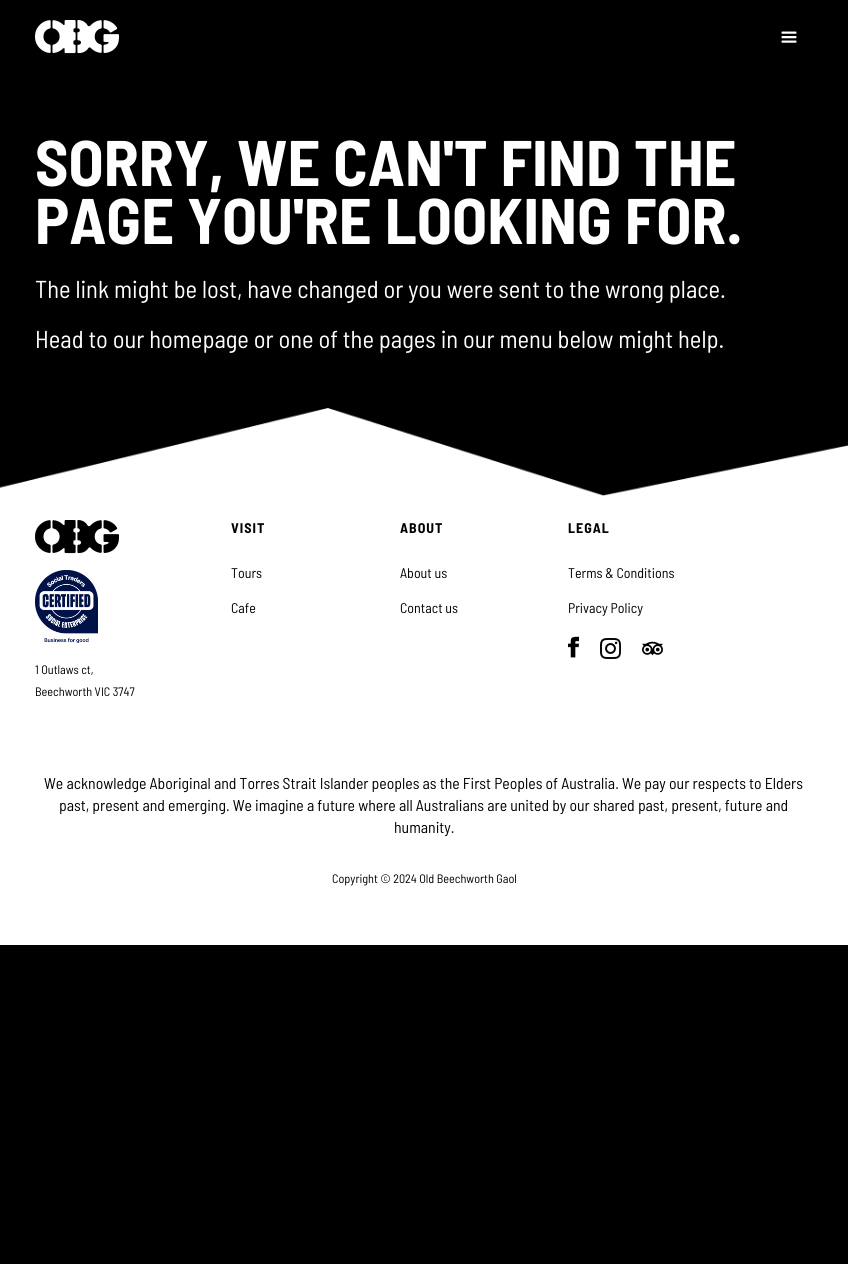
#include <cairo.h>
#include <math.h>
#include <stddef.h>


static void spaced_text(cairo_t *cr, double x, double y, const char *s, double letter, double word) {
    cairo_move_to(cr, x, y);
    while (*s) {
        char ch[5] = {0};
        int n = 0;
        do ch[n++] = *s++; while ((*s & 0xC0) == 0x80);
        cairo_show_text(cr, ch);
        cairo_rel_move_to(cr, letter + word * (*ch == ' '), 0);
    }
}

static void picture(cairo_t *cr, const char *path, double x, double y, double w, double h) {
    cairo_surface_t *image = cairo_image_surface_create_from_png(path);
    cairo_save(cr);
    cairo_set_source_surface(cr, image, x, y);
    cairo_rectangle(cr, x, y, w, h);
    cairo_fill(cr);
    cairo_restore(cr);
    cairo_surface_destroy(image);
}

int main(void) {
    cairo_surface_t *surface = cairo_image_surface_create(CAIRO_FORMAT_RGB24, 848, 1264);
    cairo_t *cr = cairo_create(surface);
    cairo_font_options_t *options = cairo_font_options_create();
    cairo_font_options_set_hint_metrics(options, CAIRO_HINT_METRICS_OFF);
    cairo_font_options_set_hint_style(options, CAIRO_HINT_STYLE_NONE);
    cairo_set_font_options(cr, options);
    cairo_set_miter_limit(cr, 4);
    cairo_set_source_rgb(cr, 0, 0, 0);
    cairo_paint(cr);
    picture(cr, "img1.png", 35, 20, 84, 34);
    picture(cr, "img2.png", 781, 31, 16, 12);
    cairo_select_font_face(cr, "Barlow Semi Condensed", CAIRO_FONT_SLANT_NORMAL, CAIRO_FONT_WEIGHT_BOLD);
    cairo_set_font_size(cr, 64.4);
    cairo_set_source_rgb(cr, 1, 1, 1);
    cairo_move_to(cr, 35, 186);
    cairo_show_text(cr, "SORRY, WE CAN'T FIND THE");
    cairo_move_to(cr, 35, 244);
    cairo_show_text(cr, "PAGE YOU'RE LOOKING FOR.");
    cairo_select_font_face(cr, "Barlow Semi Condensed", CAIRO_FONT_SLANT_NORMAL, CAIRO_FONT_WEIGHT_NORMAL);
    cairo_set_font_size(cr, 24.5);
    cairo_move_to(cr, 35, 298);
    cairo_show_text(cr, "The link might be lost, have changed or you were sent to the wrong place.");
    cairo_move_to(cr, 35, 348);
    cairo_show_text(cr, "Head to our homepage or one of the pages in our menu below might help.");
    picture(cr, "img3.png", 0, 408, 848, 537);
    cairo_select_font_face(cr, "Barlow Semi Condensed", CAIRO_FONT_SLANT_NORMAL, CAIRO_FONT_WEIGHT_BOLD);
    cairo_set_font_size(cr, 14);
    cairo_set_source_rgb(cr, 0, 0, 0);
    spaced_text(cr, 231, 533, "VISIT", 1, 0);
    cairo_select_font_face(cr, "Barlow Semi Condensed", CAIRO_FONT_SLANT_NORMAL, CAIRO_FONT_WEIGHT_NORMAL);
    cairo_move_to(cr, 231, 578);
    cairo_show_text(cr, "Tours");
    cairo_move_to(cr, 231, 613);
    cairo_show_text(cr, "Cafe");
    cairo_select_font_face(cr, "Barlow Semi Condensed", CAIRO_FONT_SLANT_NORMAL, CAIRO_FONT_WEIGHT_BOLD);
    spaced_text(cr, 400, 533, "ABOUT", 1, 0);
    cairo_select_font_face(cr, "Barlow Semi Condensed", CAIRO_FONT_SLANT_NORMAL, CAIRO_FONT_WEIGHT_NORMAL);
    cairo_move_to(cr, 400, 578);
    cairo_show_text(cr, "About us");
    cairo_move_to(cr, 400, 613);
    cairo_show_text(cr, "Contact us");
    cairo_select_font_face(cr, "Barlow Semi Condensed", CAIRO_FONT_SLANT_NORMAL, CAIRO_FONT_WEIGHT_BOLD);
    spaced_text(cr, 568, 533, "LEGAL", 1, 0);
    cairo_select_font_face(cr, "Barlow Semi Condensed", CAIRO_FONT_SLANT_NORMAL, CAIRO_FONT_WEIGHT_NORMAL);
    cairo_move_to(cr, 568, 578);
    cairo_show_text(cr, "Terms & Conditions");
    cairo_move_to(cr, 568, 613);
    cairo_show_text(cr, "Privacy Policy");
    picture(cr, "img4.png", 568, 636, 11, 22);
    picture(cr, "img5.png", 600, 638, 21, 21);
    picture(cr, "img6.png", 642, 641, 21, 15);
    picture(cr, "img7.png", 35, 520, 84, 34);
    picture(cr, "img8.png", 35, 570, 63, 73);
    cairo_set_font_size(cr, 12.25);
    cairo_move_to(cr, 35, 674);
    cairo_show_text(cr, "1 Outlaws ct,");
    cairo_move_to(cr, 35, 696);
    cairo_show_text(cr, "Beechworth VIC 3747");
    cairo_set_font_size(cr, 15.75);
    cairo_move_to(cr, 44, 789);
    cairo_show_text(cr, "We acknowledge Aboriginal and Torres Strait Islander peoples as the First Peoples of Australia. We pay our respects to Elders");
    cairo_move_to(cr, 59, 811);
    cairo_show_text(cr, "past, present and emerging. We imagine a future where all Australians are united by our shared past, present, future and");
    cairo_move_to(cr, 394, 833);
    cairo_show_text(cr, "humanity.");
    cairo_set_font_size(cr, 12.25);
    cairo_move_to(cr, 332, 883);
    cairo_show_text(cr, "Copyright © 2024 Old Beechworth Gaol");
    cairo_surface_write_to_png(surface, "page.png");
    cairo_font_options_destroy(options);
    cairo_destroy(cr);
    cairo_surface_destroy(surface);
    return 0;
}
